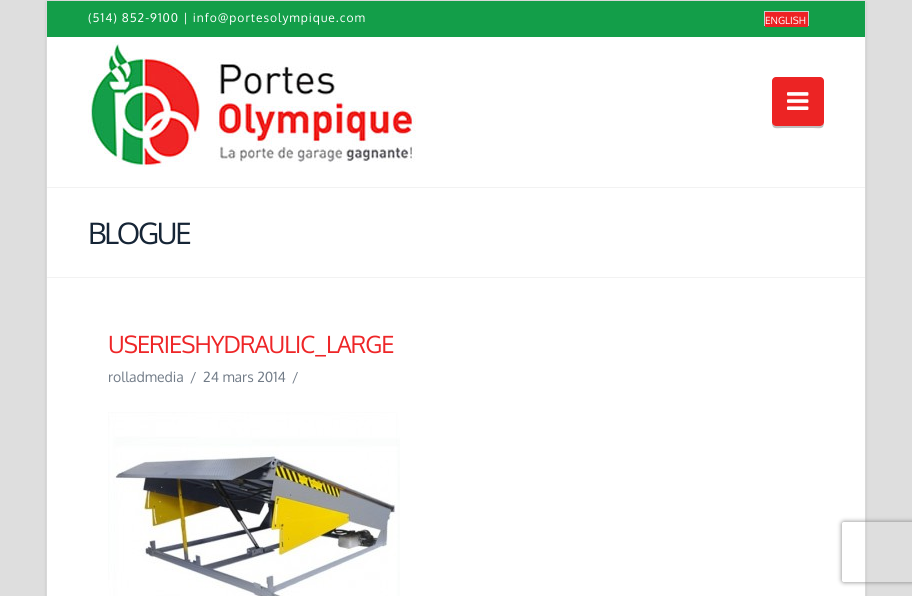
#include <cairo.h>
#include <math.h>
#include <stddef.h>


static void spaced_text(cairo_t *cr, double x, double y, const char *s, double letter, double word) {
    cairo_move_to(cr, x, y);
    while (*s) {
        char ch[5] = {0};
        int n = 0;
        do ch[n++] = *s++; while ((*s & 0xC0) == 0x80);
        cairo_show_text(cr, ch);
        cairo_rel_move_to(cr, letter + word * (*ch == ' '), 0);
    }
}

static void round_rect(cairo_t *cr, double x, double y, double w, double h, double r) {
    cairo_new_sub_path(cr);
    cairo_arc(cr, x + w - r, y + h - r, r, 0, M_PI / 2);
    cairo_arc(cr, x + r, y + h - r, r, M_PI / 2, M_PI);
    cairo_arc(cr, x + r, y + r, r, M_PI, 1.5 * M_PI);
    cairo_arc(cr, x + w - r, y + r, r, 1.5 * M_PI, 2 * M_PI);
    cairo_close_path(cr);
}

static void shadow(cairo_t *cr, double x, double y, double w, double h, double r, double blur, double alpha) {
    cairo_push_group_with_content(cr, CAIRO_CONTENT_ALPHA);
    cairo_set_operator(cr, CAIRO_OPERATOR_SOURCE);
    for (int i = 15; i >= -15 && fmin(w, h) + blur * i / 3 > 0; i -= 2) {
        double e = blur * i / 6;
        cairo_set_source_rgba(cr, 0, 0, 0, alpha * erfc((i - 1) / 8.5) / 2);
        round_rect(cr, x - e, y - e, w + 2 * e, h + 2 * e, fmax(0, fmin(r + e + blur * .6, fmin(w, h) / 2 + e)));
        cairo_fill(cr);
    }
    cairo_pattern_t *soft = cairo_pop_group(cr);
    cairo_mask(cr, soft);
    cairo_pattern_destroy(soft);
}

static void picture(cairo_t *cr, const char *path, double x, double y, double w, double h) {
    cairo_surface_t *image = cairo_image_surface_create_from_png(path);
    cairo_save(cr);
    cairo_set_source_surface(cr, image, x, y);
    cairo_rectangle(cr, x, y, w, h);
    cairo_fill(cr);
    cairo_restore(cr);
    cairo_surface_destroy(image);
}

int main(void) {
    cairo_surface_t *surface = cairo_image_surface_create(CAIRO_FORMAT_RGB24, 912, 596);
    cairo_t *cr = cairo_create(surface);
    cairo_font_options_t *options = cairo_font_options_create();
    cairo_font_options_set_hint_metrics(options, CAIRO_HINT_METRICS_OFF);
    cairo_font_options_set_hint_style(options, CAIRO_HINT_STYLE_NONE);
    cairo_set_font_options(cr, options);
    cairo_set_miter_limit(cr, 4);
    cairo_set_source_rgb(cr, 0.871, 0.871, 0.871);
    cairo_paint(cr);
    cairo_set_source_rgb(cr, 0, 0, 0);
    shadow(cr, 46, 2, 820, 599, 0, 1.5, 0.12);
    cairo_set_source_rgb(cr, 1, 1, 1);
    cairo_rectangle(cr, 47, 37, 818, 559);
    cairo_fill(cr);
    cairo_rectangle(cr, 46.5, 0.5, 819, 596);
    cairo_set_source_rgb(cr, 0.851, 0.851, 0.851);
    cairo_set_line_width(cr, 1);
    cairo_stroke(cr);
    cairo_set_source_rgb(cr, 0.078, 0.62, 0.286);
    cairo_rectangle(cr, 47, 1, 818, 36);
    cairo_fill(cr);
    cairo_select_font_face(cr, "Oxygen", CAIRO_FONT_SLANT_NORMAL, CAIRO_FONT_WEIGHT_NORMAL);
    cairo_set_font_size(cr, 12);
    cairo_set_source_rgb(cr, 1, 1, 1);
    spaced_text(cr, 88, 22, "(514) 852-9100 | info@portesolympique.com", 1, 0);
    cairo_set_source_rgb(cr, 0.804, 0.804, 0.804);
    cairo_rectangle(cr, 764, 11, 45, 1);
    cairo_fill(cr);
    cairo_rectangle(cr, 808, 11, 1, 15);
    cairo_fill(cr);
    cairo_rectangle(cr, 764, 11, 1, 15);
    cairo_fill(cr);
    cairo_set_source_rgb(cr, 0.933, 0.133, 0.141);
    cairo_rectangle(cr, 765, 12, 43, 15);
    cairo_fill(cr);
    cairo_set_font_size(cr, 10);
    cairo_set_source_rgb(cr, 1, 1, 1);
    cairo_move_to(cr, 765, 24);
    cairo_show_text(cr, "ENGLISH");
    picture(cr, "img1.png", 88, 42, 328, 125);
    cairo_set_source_rgb(cr, 0.749, 0.749, 0.749);
    cairo_new_path(cr);
    cairo_move_to(cr, 772, 122);
    cairo_curve_to(cr, 772, 130, 776, 128, 783, 128);
    cairo_line_to(cr, 813, 128);
    cairo_curve_to(cr, 820, 128, 824, 130, 824, 122);
    cairo_curve_to(cr, 824, 124, 822, 126, 820, 126);
    cairo_line_to(cr, 776, 126);
    cairo_curve_to(cr, 774, 126, 772, 124, 772, 122);
    cairo_close_path(cr);
    cairo_fill(cr);
    cairo_set_source_rgb(cr, 0.925, 0.141, 0.141);
    round_rect(cr, 772, 77, 52, 49, 4);
    cairo_fill(cr);
    picture(cr, "img2.png", 787, 92, 22, 18);
    cairo_set_source_rgb(cr, 0.949, 0.949, 0.949);
    cairo_rectangle(cr, 47, 187, 818, 1);
    cairo_fill(cr);
    cairo_rectangle(cr, 47, 277, 818, 1);
    cairo_fill(cr);
    cairo_set_font_size(cr, 29.5);
    cairo_set_source_rgb(cr, 0.086, 0.145, 0.212);
    spaced_text(cr, 88, 244, "BLOGUE", -2.25, 0);
    cairo_set_font_size(cr, 23.75);
    cairo_set_source_rgb(cr, 0.933, 0.149, 0.157);
    spaced_text(cr, 108, 353, "USERIESHYDRAULIC_LARGE", -1, 0);
    cairo_set_font_size(cr, 14);
    cairo_set_source_rgb(cr, 0.443, 0.482, 0.529);
    cairo_move_to(cr, 108, 382);
    cairo_show_text(cr, "rolladmedia");
    cairo_move_to(cr, 190, 382);
    cairo_show_text(cr, "/");
    cairo_move_to(cr, 203, 382);
    cairo_show_text(cr, "24 mars 2014");
    cairo_move_to(cr, 292, 382);
    cairo_show_text(cr, "/");
    picture(cr, "img3.png", 108, 412, 292, 184);
    cairo_save(cr);
    cairo_set_fill_rule(cr, CAIRO_FILL_RULE_EVEN_ODD);
    cairo_new_path(cr);
    cairo_move_to(cr, 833, 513);
    cairo_line_to(cr, 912, 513);
    cairo_line_to(cr, 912, 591);
    cairo_line_to(cr, 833, 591);
    cairo_close_path(cr);
    cairo_move_to(cr, 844, 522);
    cairo_line_to(cr, 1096, 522);
    cairo_curve_to(cr, 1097, 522, 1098, 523, 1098, 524);
    cairo_line_to(cr, 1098, 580);
    cairo_curve_to(cr, 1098, 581, 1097, 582, 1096, 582);
    cairo_line_to(cr, 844, 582);
    cairo_curve_to(cr, 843, 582, 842, 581, 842, 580);
    cairo_line_to(cr, 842, 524);
    cairo_curve_to(cr, 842, 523, 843, 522, 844, 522);
    cairo_close_path(cr);
    cairo_clip(cr);
    cairo_set_source_rgb(cr, 0.502, 0.502, 0.502);
    shadow(cr, 842, 522, 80, 60, 2, 2.5, 1);
    cairo_restore(cr);
    cairo_surface_write_to_png(surface, "page.png");
    cairo_font_options_destroy(options);
    cairo_destroy(cr);
    cairo_surface_destroy(surface);
    return 0;
}
